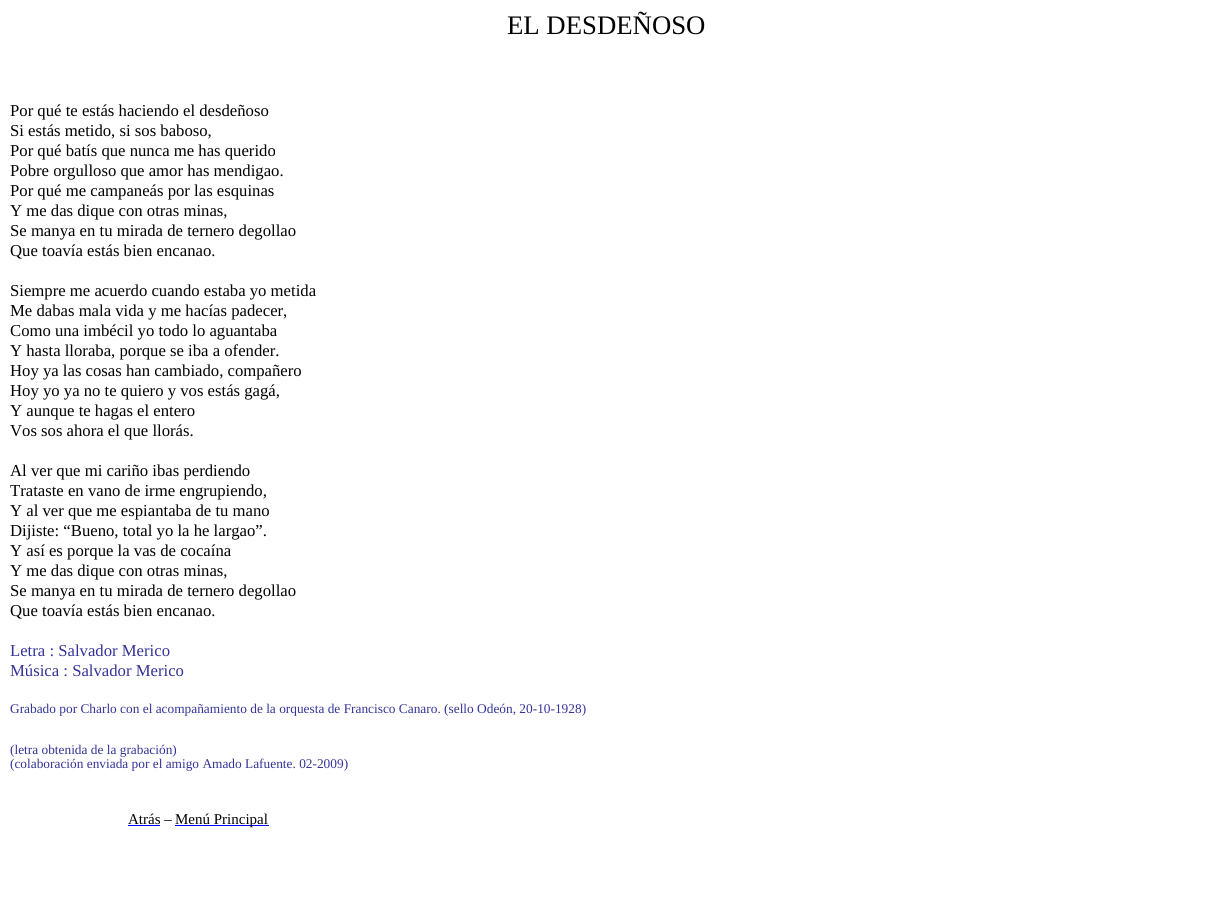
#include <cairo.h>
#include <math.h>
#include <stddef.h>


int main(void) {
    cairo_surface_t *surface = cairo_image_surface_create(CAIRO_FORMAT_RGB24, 1211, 911);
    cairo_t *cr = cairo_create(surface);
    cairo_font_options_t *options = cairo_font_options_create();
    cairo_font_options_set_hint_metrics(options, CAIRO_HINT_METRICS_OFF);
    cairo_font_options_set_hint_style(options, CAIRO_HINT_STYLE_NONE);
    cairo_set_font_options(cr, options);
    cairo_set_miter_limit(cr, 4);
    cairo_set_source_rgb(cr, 1, 1, 1);
    cairo_paint(cr);
    cairo_select_font_face(cr, "Liberation Serif", CAIRO_FONT_SLANT_NORMAL, CAIRO_FONT_WEIGHT_NORMAL);
    cairo_set_font_size(cr, 26.75);
    cairo_set_source_rgb(cr, 0, 0, 0);
    cairo_move_to(cr, 507, 34);
    cairo_show_text(cr, "EL DESDEÑOSO");
    cairo_set_font_size(cr, 16.7);
    cairo_move_to(cr, 10, 116);
    cairo_show_text(cr, "Por qué te estás haciendo el desdeñoso");
    cairo_move_to(cr, 10, 136);
    cairo_show_text(cr, "Si estás metido, si sos baboso,");
    cairo_move_to(cr, 10, 156);
    cairo_show_text(cr, "Por qué batís que nunca me has querido");
    cairo_move_to(cr, 10, 176);
    cairo_show_text(cr, "Pobre orgulloso que amor has mendigao.");
    cairo_move_to(cr, 10, 196);
    cairo_show_text(cr, "Por qué me campaneás por las esquinas");
    cairo_move_to(cr, 10, 216);
    cairo_show_text(cr, "Y me das dique con otras minas,");
    cairo_move_to(cr, 10, 236);
    cairo_show_text(cr, "Se manya en tu mirada de ternero degollao");
    cairo_move_to(cr, 10, 256);
    cairo_show_text(cr, "Que toavía estás bien encanao.");
    cairo_move_to(cr, 10, 296);
    cairo_show_text(cr, "Siempre me acuerdo cuando estaba yo metida");
    cairo_move_to(cr, 10, 316);
    cairo_show_text(cr, "Me dabas mala vida y me hacías padecer,");
    cairo_move_to(cr, 10, 336);
    cairo_show_text(cr, "Como una imbécil yo todo lo aguantaba");
    cairo_move_to(cr, 10, 356);
    cairo_show_text(cr, "Y hasta lloraba, porque se iba a ofender.");
    cairo_move_to(cr, 10, 376);
    cairo_show_text(cr, "Hoy ya las cosas han cambiado, compañero");
    cairo_move_to(cr, 10, 396);
    cairo_show_text(cr, "Hoy yo ya no te quiero y vos estás gagá,");
    cairo_move_to(cr, 10, 416);
    cairo_show_text(cr, "Y aunque te hagas el entero");
    cairo_move_to(cr, 10, 436);
    cairo_show_text(cr, "Vos sos ahora el que llorás.");
    cairo_move_to(cr, 10, 476);
    cairo_show_text(cr, "Al ver que mi cariño ibas perdiendo");
    cairo_move_to(cr, 10, 496);
    cairo_show_text(cr, "Trataste en vano de irme engrupiendo,");
    cairo_move_to(cr, 10, 516);
    cairo_show_text(cr, "Y al ver que me espiantaba de tu mano");
    cairo_move_to(cr, 10, 536);
    cairo_show_text(cr, "Dijiste: “Bueno, total yo la he largao”.");
    cairo_move_to(cr, 10, 556);
    cairo_show_text(cr, "Y así es porque la vas de cocaína");
    cairo_move_to(cr, 10, 576);
    cairo_show_text(cr, "Y me das dique con otras minas,");
    cairo_move_to(cr, 10, 596);
    cairo_show_text(cr, "Se manya en tu mirada de ternero degollao");
    cairo_move_to(cr, 10, 616);
    cairo_show_text(cr, "Que toavía estás bien encanao.");
    cairo_set_source_rgb(cr, 0.2, 0.2, 0.6);
    cairo_move_to(cr, 10, 656);
    cairo_show_text(cr, "Letra : Salvador Merico");
    cairo_move_to(cr, 10, 676);
    cairo_show_text(cr, "Música : Salvador Merico");
    cairo_set_font_size(cr, 13.35);
    cairo_move_to(cr, 10, 713);
    cairo_show_text(cr, "Grabado por Charlo con el acompañamiento de la orquesta de Francisco Canaro. (sello Odeón, 20-10-1928)");
    cairo_move_to(cr, 10, 754);
    cairo_show_text(cr, "(letra obtenida de la grabación)");
    cairo_move_to(cr, 10, 768);
    cairo_show_text(cr, "(colaboración enviada por el amigo Amado Lafuente. 02-2009)");
    cairo_set_font_size(cr, 15);
    cairo_set_source_rgb(cr, 0, 0, 0);
    cairo_move_to(cr, 128, 824);
    cairo_show_text(cr, "Atrás –");
    cairo_set_source_rgb(cr, 0, 0, 1);
    cairo_rectangle(cr, 128, 825, 32, 1);
    cairo_fill(cr);
    cairo_rectangle(cr, 175, 825, 94, 1);
    cairo_fill(cr);
    cairo_set_source_rgb(cr, 0, 0, 0);
    cairo_move_to(cr, 175, 824);
    cairo_show_text(cr, "Menú Principal");
    cairo_surface_write_to_png(surface, "page.png");
    cairo_font_options_destroy(options);
    cairo_destroy(cr);
    cairo_surface_destroy(surface);
    return 0;
}
